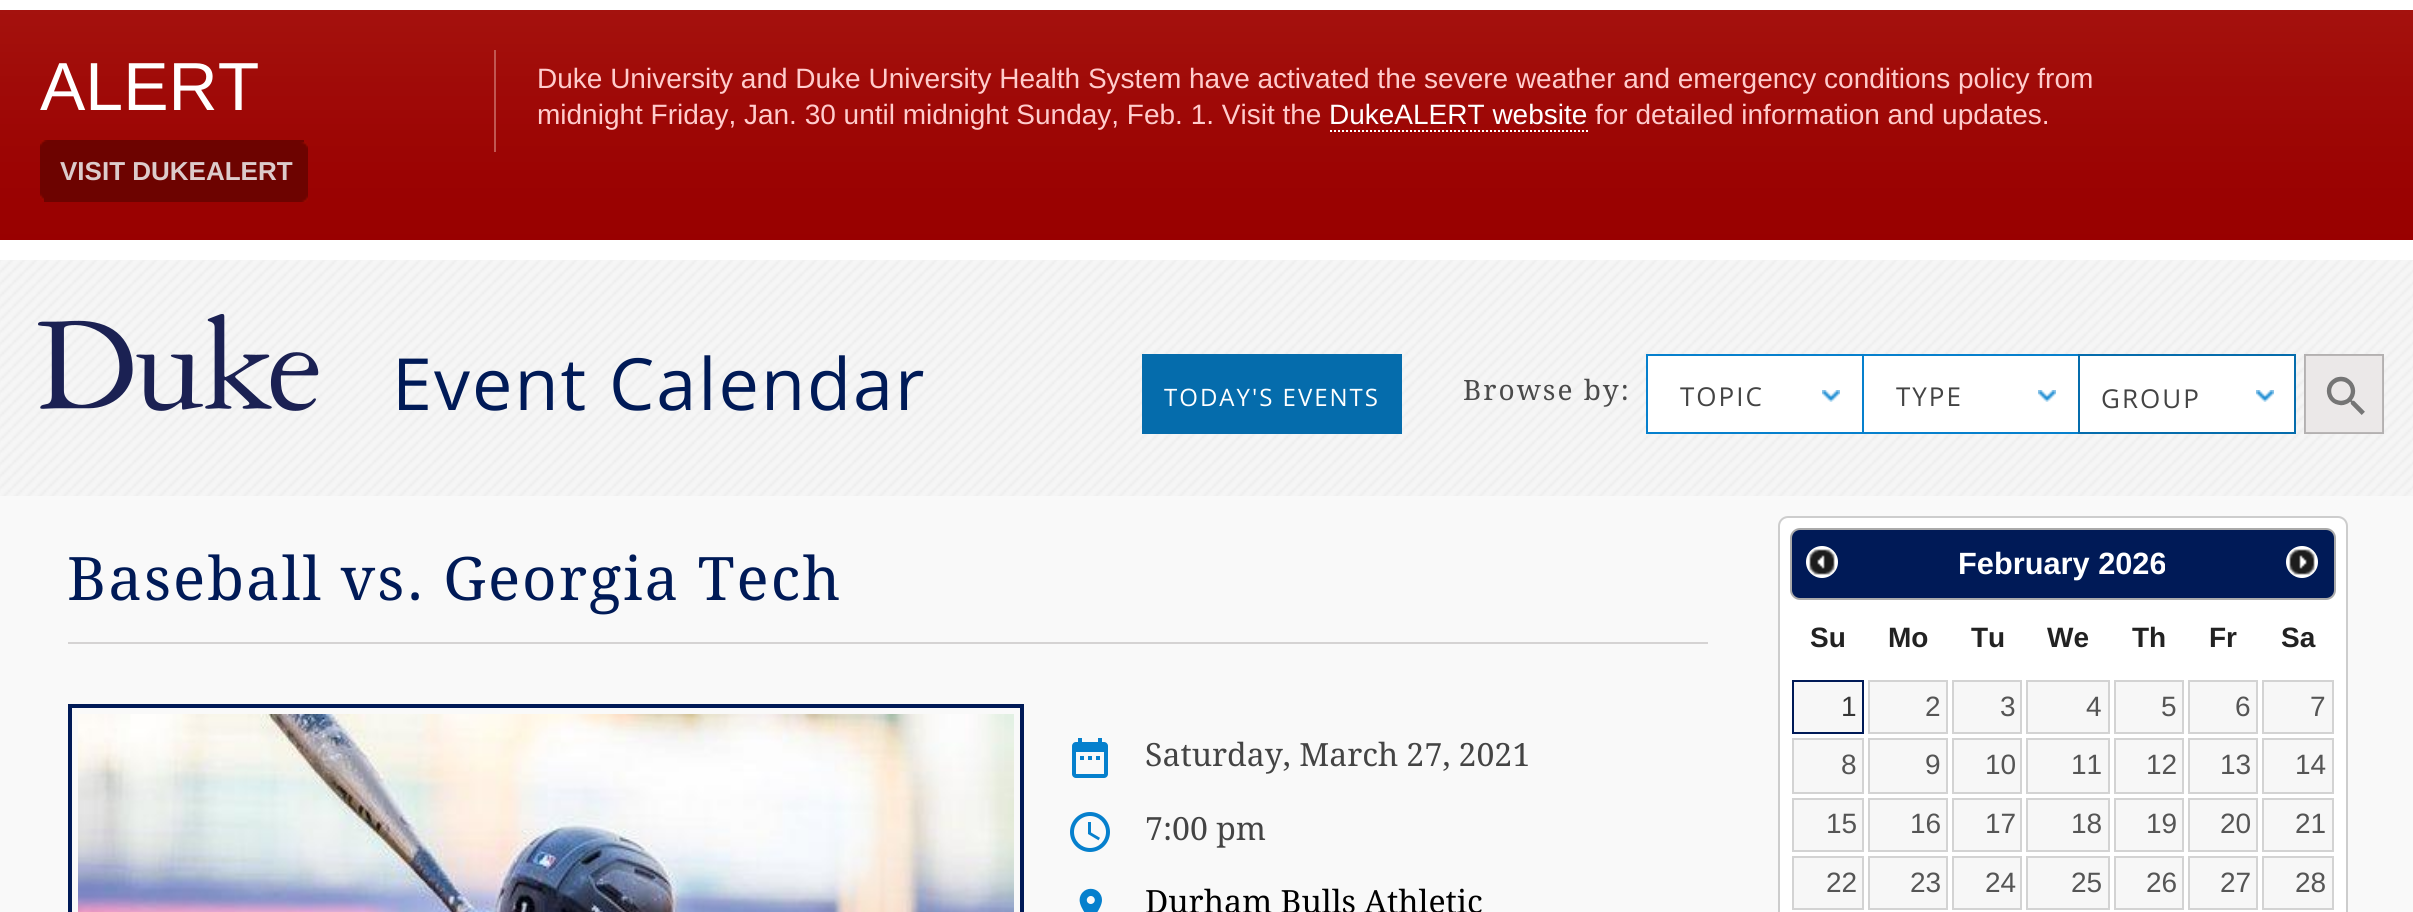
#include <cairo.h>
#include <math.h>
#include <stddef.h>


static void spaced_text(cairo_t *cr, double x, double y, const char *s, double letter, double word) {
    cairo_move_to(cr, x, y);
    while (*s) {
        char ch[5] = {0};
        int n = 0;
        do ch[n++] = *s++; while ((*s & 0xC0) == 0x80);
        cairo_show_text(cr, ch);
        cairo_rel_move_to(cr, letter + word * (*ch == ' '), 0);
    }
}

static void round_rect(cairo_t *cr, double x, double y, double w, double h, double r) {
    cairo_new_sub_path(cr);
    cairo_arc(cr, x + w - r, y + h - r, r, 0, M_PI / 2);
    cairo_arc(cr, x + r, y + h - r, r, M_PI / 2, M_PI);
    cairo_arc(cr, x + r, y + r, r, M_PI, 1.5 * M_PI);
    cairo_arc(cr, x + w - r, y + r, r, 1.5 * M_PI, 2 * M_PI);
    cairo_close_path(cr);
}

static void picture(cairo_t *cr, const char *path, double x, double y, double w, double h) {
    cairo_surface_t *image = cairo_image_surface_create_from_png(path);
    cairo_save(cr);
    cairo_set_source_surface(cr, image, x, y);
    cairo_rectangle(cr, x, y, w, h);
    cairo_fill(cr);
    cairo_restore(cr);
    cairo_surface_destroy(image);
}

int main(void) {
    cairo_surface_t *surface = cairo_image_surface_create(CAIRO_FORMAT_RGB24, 2413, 912);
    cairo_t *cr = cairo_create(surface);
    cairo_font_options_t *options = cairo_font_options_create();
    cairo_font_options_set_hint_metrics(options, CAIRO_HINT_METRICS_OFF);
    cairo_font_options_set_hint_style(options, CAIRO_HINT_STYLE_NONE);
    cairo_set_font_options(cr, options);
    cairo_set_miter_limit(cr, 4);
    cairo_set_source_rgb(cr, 1, 1, 1);
    cairo_paint(cr);
    picture(cr, "img1.png", 0, 10, 2413, 230);
    cairo_select_font_face(cr, "Liberation Sans", CAIRO_FONT_SLANT_NORMAL, CAIRO_FONT_WEIGHT_NORMAL);
    cairo_set_font_size(cr, 68);
    cairo_set_source_rgb(cr, 1, 1, 1);
    cairo_move_to(cr, 40, 110);
    cairo_show_text(cr, "ALERT");
    picture(cr, "img2.png", 40, 140, 264, 60);
    picture(cr, "img3.png", 44, 142, 264, 60);
    cairo_select_font_face(cr, "Liberation Sans", CAIRO_FONT_SLANT_NORMAL, CAIRO_FONT_WEIGHT_BOLD);
    cairo_set_font_size(cr, 26);
    cairo_set_source_rgb(cr, 0.863, 0.796, 0.796);
    cairo_move_to(cr, 60, 180);
    cairo_show_text(cr, "VISIT DUKEALERT");
    cairo_set_source_rgb(cr, 0.757, 0.341, 0.322);
    cairo_rectangle(cr, 494, 50, 2, 102);
    cairo_fill(cr);
    cairo_select_font_face(cr, "Liberation Sans", CAIRO_FONT_SLANT_NORMAL, CAIRO_FONT_WEIGHT_NORMAL);
    cairo_set_font_size(cr, 28);
    cairo_set_source_rgb(cr, 1, 0.8, 0.8);
    cairo_move_to(cr, 537, 88);
    cairo_show_text(cr, "Duke University and Duke University Health System have activated the severe weather and emergency conditions policy from");
    cairo_move_to(cr, 537, 124);
    cairo_show_text(cr, "midnight Friday, Jan. 30 until midnight Sunday, Feb. 1. Visit the");
    cairo_set_source_rgb(cr, 1, 1, 1);
    cairo_move_to(cr, 1329, 124);
    cairo_show_text(cr, "DukeALERT website");
    cairo_new_path(cr);
    cairo_move_to(cr, 1330, 131);
    cairo_line_to(cr, 1588, 131);
    cairo_set_dash(cr, (double[]){2, 2}, 2, 0);
    cairo_stroke(cr);
    cairo_set_source_rgb(cr, 1, 0.8, 0.8);
    cairo_move_to(cr, 1595, 124);
    cairo_show_text(cr, "for detailed information and updates.");
    picture(cr, "img4.png", 0, 260, 2413, 236);
    picture(cr, "img5.png", 38, 314, 281, 97);
    cairo_select_font_face(cr, "Open Sans", CAIRO_FONT_SLANT_NORMAL, CAIRO_FONT_WEIGHT_NORMAL);
    cairo_set_font_size(cr, 72);
    cairo_set_source_rgb(cr, 0, 0.102, 0.341);
    spaced_text(cr, 392, 410, "Event Calendar", 2, 0);
    cairo_set_source_rgb(cr, 0.02, 0.424, 0.675);
    cairo_rectangle(cr, 1142, 354, 260, 80);
    cairo_fill(cr);
    cairo_set_font_size(cr, 24);
    cairo_set_source_rgb(cr, 1, 1, 1);
    spaced_text(cr, 1164, 406, "TODAY'S EVENTS", 2, 0);
    cairo_select_font_face(cr, "Droid Serif", CAIRO_FONT_SLANT_NORMAL, CAIRO_FONT_WEIGHT_NORMAL);
    cairo_set_font_size(cr, 28);
    cairo_set_source_rgb(cr, 0.29, 0.29, 0.29);
    spaced_text(cr, 1463, 400, "Browse by:", 2, 0);
    cairo_set_source_rgb(cr, 1, 1, 1);
    cairo_rectangle(cr, 1648, 356, 214, 76);
    cairo_fill(cr);
    cairo_set_source_rgb(cr, 0.024, 0.502, 0.804);
    cairo_rectangle(cr, 1646, 354, 432, 2);
    cairo_fill(cr);
    cairo_rectangle(cr, 1646, 432, 432, 2);
    cairo_fill(cr);
    cairo_rectangle(cr, 1646, 354, 2, 80);
    cairo_fill(cr);
    cairo_select_font_face(cr, "Open Sans", CAIRO_FONT_SLANT_NORMAL, CAIRO_FONT_WEIGHT_NORMAL);
    cairo_set_font_size(cr, 26);
    cairo_set_source_rgb(cr, 0.267, 0.267, 0.267);
    spaced_text(cr, 1680, 406, "TOPIC", 2, 0);
    picture(cr, "img6.png", 1822, 390, 18, 12);
    cairo_set_source_rgb(cr, 1, 1, 1);
    cairo_rectangle(cr, 1864, 356, 214, 76);
    cairo_fill(cr);
    cairo_set_source_rgb(cr, 0.024, 0.502, 0.804);
    cairo_rectangle(cr, 1862, 354, 2, 80);
    cairo_fill(cr);
    cairo_set_source_rgb(cr, 0.267, 0.267, 0.267);
    spaced_text(cr, 1896, 406, "TYPE", 2, 0);
    picture(cr, "img6.png", 2038, 390, 18, 12);
    cairo_set_source_rgb(cr, 1, 1, 1);
    cairo_rectangle(cr, 2079, 355, 216, 78);
    cairo_fill_preserve(cr);
    cairo_set_source_rgb(cr, 0.02, 0.424, 0.675);
    cairo_set_dash(cr, NULL, 0, 0);
    cairo_stroke(cr);
    picture(cr, "img6.png", 2256, 390, 18, 12);
    cairo_set_source_rgb(cr, 0.267, 0.267, 0.267);
    spaced_text(cr, 2101, 408, "GROUP", 2, 0);
    picture(cr, "img7.png", 2304, 354, 80, 80);
    cairo_set_source_rgb(cr, 0.976, 0.976, 0.976);
    cairo_rectangle(cr, 0, 496, 2413, 416);
    cairo_fill(cr);
    cairo_select_font_face(cr, "Droid Serif", CAIRO_FONT_SLANT_NORMAL, CAIRO_FONT_WEIGHT_NORMAL);
    cairo_set_font_size(cr, 60);
    cairo_set_source_rgb(cr, 0, 0.102, 0.341);
    spaced_text(cr, 67, 600, "Baseball vs. Georgia Tech", 2, 0);
    cairo_set_source_rgb(cr, 0.835, 0.827, 0.827);
    cairo_rectangle(cr, 68, 642, 1640, 2);
    cairo_fill(cr);
    cairo_rectangle(cr, 70, 706, 952, 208);
    cairo_set_source_rgb(cr, 0, 0.102, 0.341);
    cairo_set_line_width(cr, 4);
    cairo_stroke(cr);
    picture(cr, "img8.png", 78, 714, 936, 198);
    picture(cr, "img9.png", 1072, 738, 36, 40);
    cairo_set_font_size(cr, 32);
    cairo_set_source_rgb(cr, 0.267, 0.267, 0.267);
    cairo_move_to(cr, 1145, 766);
    cairo_show_text(cr, "Saturday, March 27, 2021");
    picture(cr, "img10.png", 1070, 812, 40, 40);
    cairo_move_to(cr, 1145, 840);
    cairo_show_text(cr, "7:00 pm");
    picture(cr, "img11.png", 1079, 888, 23, 24);
    cairo_set_source_rgb(cr, 0, 0, 0);
    cairo_move_to(cr, 1145, 913);
    cairo_show_text(cr, "Durham Bulls Athletic");
    cairo_set_source_rgb(cr, 1, 1, 1);
    round_rect(cr, 1780, 518, 566, 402, 8);
    cairo_fill(cr);
    round_rect(cr, 1779, 517, 568, 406, 9);
    cairo_set_source_rgb(cr, 0.804, 0.804, 0.804);
    cairo_set_line_width(cr, 2);
    cairo_stroke(cr);
    cairo_set_source_rgb(cr, 0, 0.102, 0.341);
    round_rect(cr, 1791, 529, 544, 70, 9);
    cairo_fill_preserve(cr);
    cairo_set_source_rgb(cr, 0.667, 0.667, 0.667);
    cairo_stroke(cr);
    cairo_set_source_rgb(cr, 1, 1, 1);
    cairo_arc(cr, 1822, 562, 16, 0, 2 * M_PI);
    cairo_fill(cr);
    picture(cr, "img12.png", 1809, 549, 26, 26);
    cairo_select_font_face(cr, "Liberation Sans", CAIRO_FONT_SLANT_NORMAL, CAIRO_FONT_WEIGHT_BOLD);
    cairo_set_font_size(cr, 30.75);
    cairo_move_to(cr, 1958, 574);
    cairo_show_text(cr, "February 2026");
    cairo_new_path(cr);
    cairo_arc(cr, 2302, 562, 16, 0, 2 * M_PI);
    cairo_fill(cr);
    picture(cr, "img13.png", 2289, 549, 26, 26);
    cairo_set_font_size(cr, 28);
    cairo_set_source_rgb(cr, 0.133, 0.133, 0.133);
    cairo_move_to(cr, 1810, 647);
    cairo_show_text(cr, "Su");
    cairo_move_to(cr, 1888, 647);
    cairo_show_text(cr, "Mo");
    cairo_move_to(cr, 1971, 647);
    cairo_show_text(cr, "Tu");
    cairo_move_to(cr, 2047, 647);
    cairo_show_text(cr, "We");
    cairo_move_to(cr, 2132, 647);
    cairo_show_text(cr, "Th");
    cairo_move_to(cr, 2209, 647);
    cairo_show_text(cr, "Fr");
    cairo_move_to(cr, 2281, 647);
    cairo_show_text(cr, "Sa");
    cairo_set_source_rgb(cr, 0.965, 0.965, 0.965);
    cairo_rectangle(cr, 1793, 681, 70, 52);
    cairo_fill_preserve(cr);
    cairo_set_source_rgb(cr, 0, 0.102, 0.341);
    cairo_stroke(cr);
    cairo_select_font_face(cr, "Liberation Sans", CAIRO_FONT_SLANT_NORMAL, CAIRO_FONT_WEIGHT_NORMAL);
    cairo_set_source_rgb(cr, 0.212, 0.212, 0.212);
    cairo_move_to(cr, 1841, 716);
    cairo_show_text(cr, "1");
    cairo_set_source_rgb(cr, 0.965, 0.965, 0.965);
    cairo_rectangle(cr, 1869, 681, 78, 52);
    cairo_fill_preserve(cr);
    cairo_set_source_rgb(cr, 0.827, 0.827, 0.827);
    cairo_stroke(cr);
    cairo_set_source_rgb(cr, 0.333, 0.333, 0.333);
    cairo_move_to(cr, 1925, 716);
    cairo_show_text(cr, "2");
    cairo_set_source_rgb(cr, 0.965, 0.965, 0.965);
    cairo_rectangle(cr, 1953, 681, 68, 52);
    cairo_fill_preserve(cr);
    cairo_set_source_rgb(cr, 0.827, 0.827, 0.827);
    cairo_stroke(cr);
    cairo_set_source_rgb(cr, 0.333, 0.333, 0.333);
    cairo_move_to(cr, 2000, 716);
    cairo_show_text(cr, "3");
    cairo_set_source_rgb(cr, 0.965, 0.965, 0.965);
    cairo_rectangle(cr, 2027, 681, 82, 52);
    cairo_fill_preserve(cr);
    cairo_set_source_rgb(cr, 0.827, 0.827, 0.827);
    cairo_stroke(cr);
    cairo_set_source_rgb(cr, 0.333, 0.333, 0.333);
    cairo_move_to(cr, 2086, 716);
    cairo_show_text(cr, "4");
    cairo_set_source_rgb(cr, 0.965, 0.965, 0.965);
    cairo_rectangle(cr, 2115, 681, 68, 52);
    cairo_fill_preserve(cr);
    cairo_set_source_rgb(cr, 0.827, 0.827, 0.827);
    cairo_stroke(cr);
    cairo_set_source_rgb(cr, 0.333, 0.333, 0.333);
    cairo_move_to(cr, 2161, 716);
    cairo_show_text(cr, "5");
    cairo_set_source_rgb(cr, 0.965, 0.965, 0.965);
    cairo_rectangle(cr, 2189, 681, 68, 52);
    cairo_fill_preserve(cr);
    cairo_set_source_rgb(cr, 0.827, 0.827, 0.827);
    cairo_stroke(cr);
    cairo_set_source_rgb(cr, 0.333, 0.333, 0.333);
    cairo_move_to(cr, 2235, 716);
    cairo_show_text(cr, "6");
    cairo_set_source_rgb(cr, 0.965, 0.965, 0.965);
    cairo_rectangle(cr, 2263, 681, 70, 52);
    cairo_fill_preserve(cr);
    cairo_set_source_rgb(cr, 0.827, 0.827, 0.827);
    cairo_stroke(cr);
    cairo_set_source_rgb(cr, 0.333, 0.333, 0.333);
    cairo_move_to(cr, 2310, 716);
    cairo_show_text(cr, "7");
    cairo_set_source_rgb(cr, 0.965, 0.965, 0.965);
    cairo_rectangle(cr, 1793, 739, 70, 54);
    cairo_fill_preserve(cr);
    cairo_set_source_rgb(cr, 0.827, 0.827, 0.827);
    cairo_stroke(cr);
    cairo_set_source_rgb(cr, 0.333, 0.333, 0.333);
    cairo_move_to(cr, 1841, 774);
    cairo_show_text(cr, "8");
    cairo_set_source_rgb(cr, 0.965, 0.965, 0.965);
    cairo_rectangle(cr, 1869, 739, 78, 54);
    cairo_fill_preserve(cr);
    cairo_set_source_rgb(cr, 0.827, 0.827, 0.827);
    cairo_stroke(cr);
    cairo_set_source_rgb(cr, 0.333, 0.333, 0.333);
    cairo_move_to(cr, 1925, 774);
    cairo_show_text(cr, "9");
    cairo_set_source_rgb(cr, 0.965, 0.965, 0.965);
    cairo_rectangle(cr, 1953, 739, 68, 54);
    cairo_fill_preserve(cr);
    cairo_set_source_rgb(cr, 0.827, 0.827, 0.827);
    cairo_stroke(cr);
    cairo_set_source_rgb(cr, 0.333, 0.333, 0.333);
    cairo_move_to(cr, 1985, 774);
    cairo_show_text(cr, "10");
    cairo_set_source_rgb(cr, 0.965, 0.965, 0.965);
    cairo_rectangle(cr, 2027, 739, 82, 54);
    cairo_fill_preserve(cr);
    cairo_set_source_rgb(cr, 0.827, 0.827, 0.827);
    cairo_stroke(cr);
    cairo_set_source_rgb(cr, 0.333, 0.333, 0.333);
    cairo_move_to(cr, 2071, 774);
    cairo_show_text(cr, "11");
    cairo_set_source_rgb(cr, 0.965, 0.965, 0.965);
    cairo_rectangle(cr, 2115, 739, 68, 54);
    cairo_fill_preserve(cr);
    cairo_set_source_rgb(cr, 0.827, 0.827, 0.827);
    cairo_stroke(cr);
    cairo_set_source_rgb(cr, 0.333, 0.333, 0.333);
    cairo_move_to(cr, 2146, 774);
    cairo_show_text(cr, "12");
    cairo_set_source_rgb(cr, 0.965, 0.965, 0.965);
    cairo_rectangle(cr, 2189, 739, 68, 54);
    cairo_fill_preserve(cr);
    cairo_set_source_rgb(cr, 0.827, 0.827, 0.827);
    cairo_stroke(cr);
    cairo_set_source_rgb(cr, 0.333, 0.333, 0.333);
    cairo_move_to(cr, 2220, 774);
    cairo_show_text(cr, "13");
    cairo_set_source_rgb(cr, 0.965, 0.965, 0.965);
    cairo_rectangle(cr, 2263, 739, 70, 54);
    cairo_fill_preserve(cr);
    cairo_set_source_rgb(cr, 0.827, 0.827, 0.827);
    cairo_stroke(cr);
    cairo_set_source_rgb(cr, 0.333, 0.333, 0.333);
    cairo_move_to(cr, 2295, 774);
    cairo_show_text(cr, "14");
    cairo_set_source_rgb(cr, 0.965, 0.965, 0.965);
    cairo_rectangle(cr, 1793, 799, 70, 52);
    cairo_fill_preserve(cr);
    cairo_set_source_rgb(cr, 0.827, 0.827, 0.827);
    cairo_stroke(cr);
    cairo_set_source_rgb(cr, 0.333, 0.333, 0.333);
    cairo_move_to(cr, 1826, 833);
    cairo_show_text(cr, "15");
    cairo_set_source_rgb(cr, 0.965, 0.965, 0.965);
    cairo_rectangle(cr, 1869, 799, 78, 52);
    cairo_fill_preserve(cr);
    cairo_set_source_rgb(cr, 0.827, 0.827, 0.827);
    cairo_stroke(cr);
    cairo_set_source_rgb(cr, 0.333, 0.333, 0.333);
    cairo_move_to(cr, 1910, 833);
    cairo_show_text(cr, "16");
    cairo_set_source_rgb(cr, 0.965, 0.965, 0.965);
    cairo_rectangle(cr, 1953, 799, 68, 52);
    cairo_fill_preserve(cr);
    cairo_set_source_rgb(cr, 0.827, 0.827, 0.827);
    cairo_stroke(cr);
    cairo_set_source_rgb(cr, 0.333, 0.333, 0.333);
    cairo_move_to(cr, 1985, 833);
    cairo_show_text(cr, "17");
    cairo_set_source_rgb(cr, 0.965, 0.965, 0.965);
    cairo_rectangle(cr, 2027, 799, 82, 52);
    cairo_fill_preserve(cr);
    cairo_set_source_rgb(cr, 0.827, 0.827, 0.827);
    cairo_stroke(cr);
    cairo_set_source_rgb(cr, 0.333, 0.333, 0.333);
    cairo_move_to(cr, 2071, 833);
    cairo_show_text(cr, "18");
    cairo_set_source_rgb(cr, 0.965, 0.965, 0.965);
    cairo_rectangle(cr, 2115, 799, 68, 52);
    cairo_fill_preserve(cr);
    cairo_set_source_rgb(cr, 0.827, 0.827, 0.827);
    cairo_stroke(cr);
    cairo_set_source_rgb(cr, 0.333, 0.333, 0.333);
    cairo_move_to(cr, 2146, 833);
    cairo_show_text(cr, "19");
    cairo_set_source_rgb(cr, 0.965, 0.965, 0.965);
    cairo_rectangle(cr, 2189, 799, 68, 52);
    cairo_fill_preserve(cr);
    cairo_set_source_rgb(cr, 0.827, 0.827, 0.827);
    cairo_stroke(cr);
    cairo_set_source_rgb(cr, 0.333, 0.333, 0.333);
    cairo_move_to(cr, 2220, 833);
    cairo_show_text(cr, "20");
    cairo_set_source_rgb(cr, 0.965, 0.965, 0.965);
    cairo_rectangle(cr, 2263, 799, 70, 52);
    cairo_fill_preserve(cr);
    cairo_set_source_rgb(cr, 0.827, 0.827, 0.827);
    cairo_stroke(cr);
    cairo_set_source_rgb(cr, 0.333, 0.333, 0.333);
    cairo_move_to(cr, 2295, 833);
    cairo_show_text(cr, "21");
    cairo_set_source_rgb(cr, 0.965, 0.965, 0.965);
    cairo_rectangle(cr, 1793, 857, 70, 52);
    cairo_fill_preserve(cr);
    cairo_set_source_rgb(cr, 0.827, 0.827, 0.827);
    cairo_stroke(cr);
    cairo_set_source_rgb(cr, 0.333, 0.333, 0.333);
    cairo_move_to(cr, 1826, 892);
    cairo_show_text(cr, "22");
    cairo_set_source_rgb(cr, 0.965, 0.965, 0.965);
    cairo_rectangle(cr, 1869, 857, 78, 52);
    cairo_fill_preserve(cr);
    cairo_set_source_rgb(cr, 0.827, 0.827, 0.827);
    cairo_stroke(cr);
    cairo_set_source_rgb(cr, 0.333, 0.333, 0.333);
    cairo_move_to(cr, 1910, 892);
    cairo_show_text(cr, "23");
    cairo_set_source_rgb(cr, 0.965, 0.965, 0.965);
    cairo_rectangle(cr, 1953, 857, 68, 52);
    cairo_fill_preserve(cr);
    cairo_set_source_rgb(cr, 0.827, 0.827, 0.827);
    cairo_stroke(cr);
    cairo_set_source_rgb(cr, 0.333, 0.333, 0.333);
    cairo_move_to(cr, 1985, 892);
    cairo_show_text(cr, "24");
    cairo_set_source_rgb(cr, 0.965, 0.965, 0.965);
    cairo_rectangle(cr, 2027, 857, 82, 52);
    cairo_fill_preserve(cr);
    cairo_set_source_rgb(cr, 0.827, 0.827, 0.827);
    cairo_stroke(cr);
    cairo_set_source_rgb(cr, 0.333, 0.333, 0.333);
    cairo_move_to(cr, 2071, 892);
    cairo_show_text(cr, "25");
    cairo_set_source_rgb(cr, 0.965, 0.965, 0.965);
    cairo_rectangle(cr, 2115, 857, 68, 52);
    cairo_fill_preserve(cr);
    cairo_set_source_rgb(cr, 0.827, 0.827, 0.827);
    cairo_stroke(cr);
    cairo_set_source_rgb(cr, 0.333, 0.333, 0.333);
    cairo_move_to(cr, 2146, 892);
    cairo_show_text(cr, "26");
    cairo_set_source_rgb(cr, 0.965, 0.965, 0.965);
    cairo_rectangle(cr, 2189, 857, 68, 52);
    cairo_fill_preserve(cr);
    cairo_set_source_rgb(cr, 0.827, 0.827, 0.827);
    cairo_stroke(cr);
    cairo_set_source_rgb(cr, 0.333, 0.333, 0.333);
    cairo_move_to(cr, 2220, 892);
    cairo_show_text(cr, "27");
    cairo_set_source_rgb(cr, 0.965, 0.965, 0.965);
    cairo_rectangle(cr, 2263, 857, 70, 52);
    cairo_fill_preserve(cr);
    cairo_set_source_rgb(cr, 0.827, 0.827, 0.827);
    cairo_stroke(cr);
    cairo_set_source_rgb(cr, 0.333, 0.333, 0.333);
    cairo_move_to(cr, 2295, 892);
    cairo_show_text(cr, "28");
    cairo_surface_write_to_png(surface, "page.png");
    cairo_font_options_destroy(options);
    cairo_destroy(cr);
    cairo_surface_destroy(surface);
    return 0;
}
